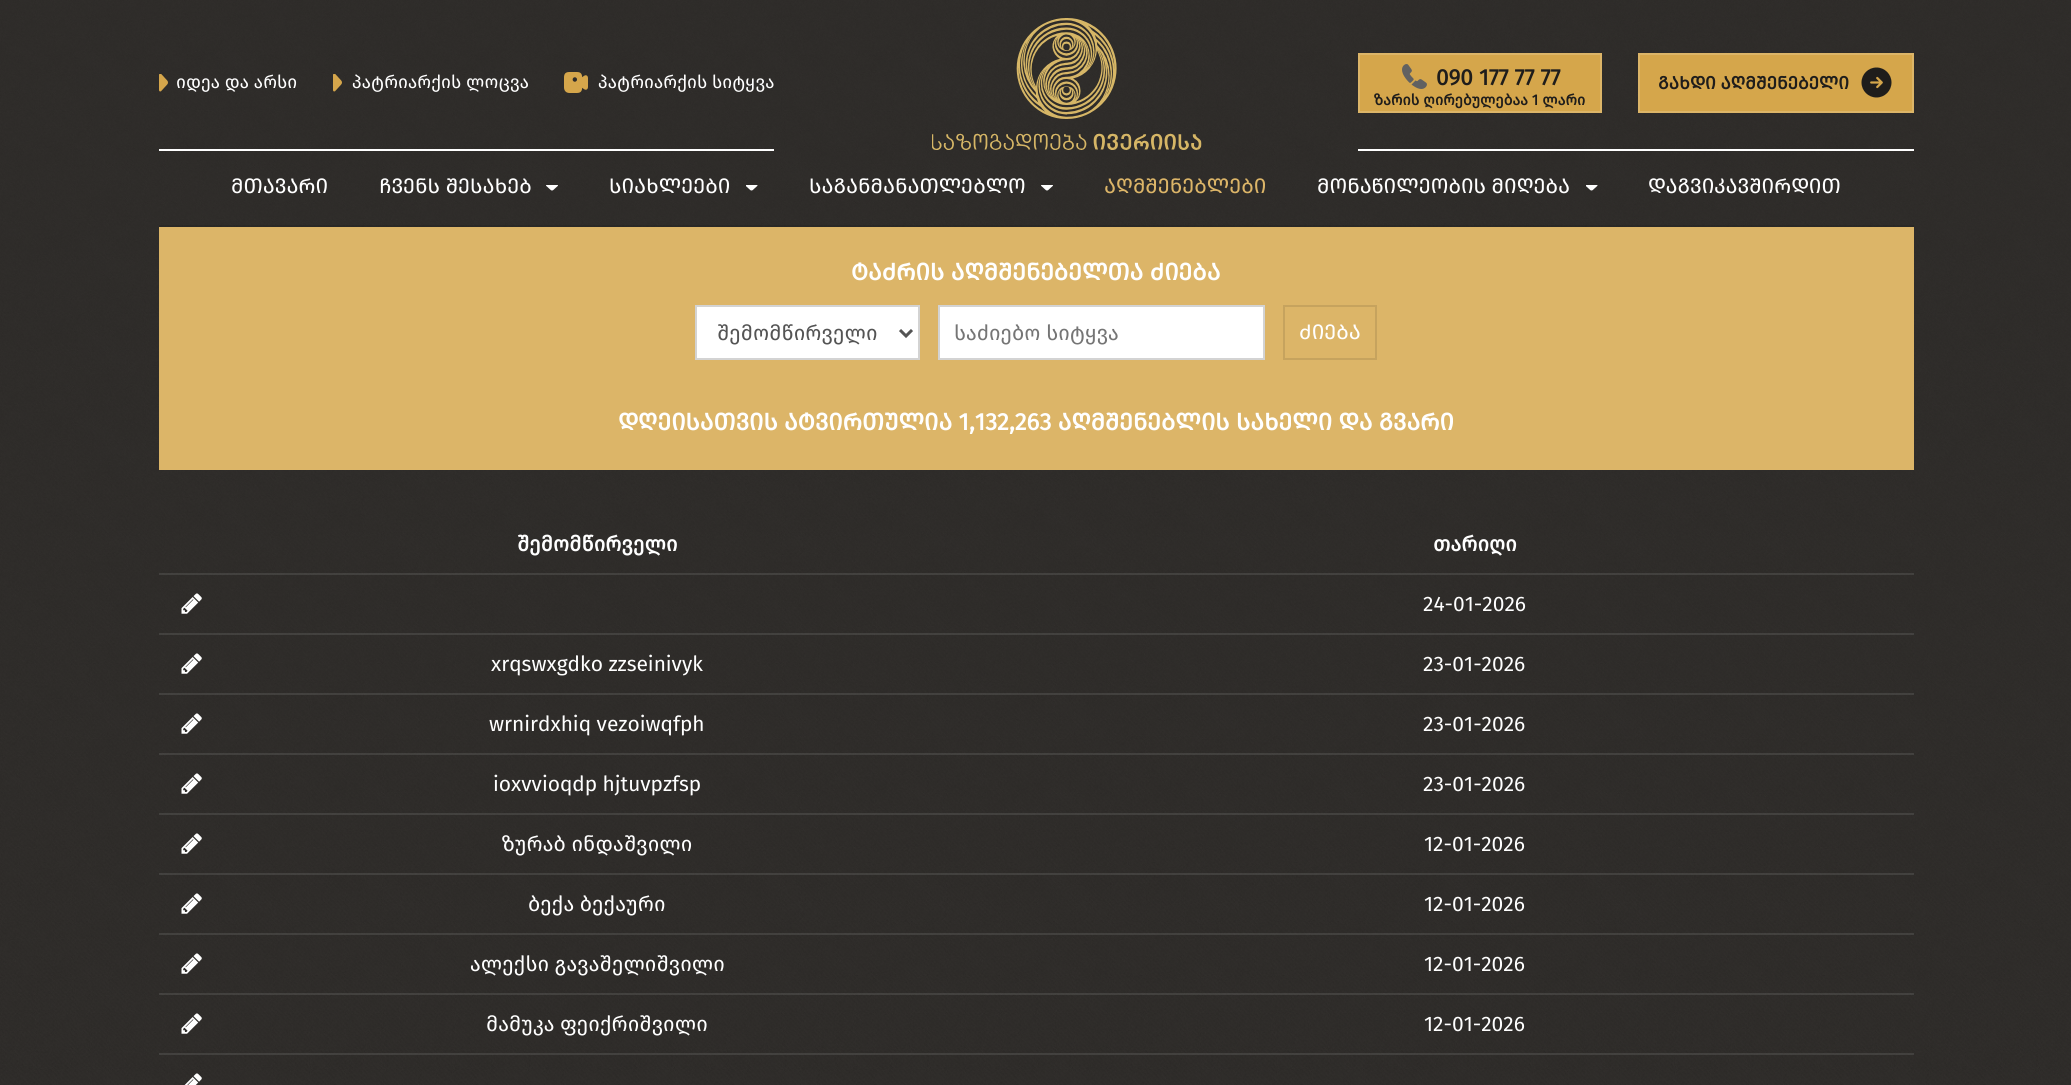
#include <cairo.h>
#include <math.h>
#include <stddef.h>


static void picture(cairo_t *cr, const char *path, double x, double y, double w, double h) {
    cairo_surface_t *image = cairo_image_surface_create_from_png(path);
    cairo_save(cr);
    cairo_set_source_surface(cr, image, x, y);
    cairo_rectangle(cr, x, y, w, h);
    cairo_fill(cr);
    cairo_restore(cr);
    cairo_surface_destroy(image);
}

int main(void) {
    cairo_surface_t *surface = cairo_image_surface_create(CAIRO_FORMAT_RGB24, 2071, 1085);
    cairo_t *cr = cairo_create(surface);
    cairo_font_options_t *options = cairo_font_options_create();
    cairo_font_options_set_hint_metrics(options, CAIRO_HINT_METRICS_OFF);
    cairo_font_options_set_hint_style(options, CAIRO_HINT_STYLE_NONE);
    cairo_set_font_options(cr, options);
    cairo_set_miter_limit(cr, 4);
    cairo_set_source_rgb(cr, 0.204, 0.192, 0.18);
    cairo_paint(cr);
    picture(cr, "img1.png", 0, 0, 2071, 1085);
    cairo_set_source_rgb(cr, 1, 1, 1);
    cairo_rectangle(cr, 159, 149, 615, 2);
    cairo_fill(cr);
    picture(cr, "img2.png", 159, 74, 9, 18);
    cairo_select_font_face(cr, "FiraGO", CAIRO_FONT_SLANT_NORMAL, CAIRO_FONT_WEIGHT_NORMAL);
    cairo_set_font_size(cr, 18);
    cairo_move_to(cr, 176, 88);
    cairo_show_text(cr, "იდეა და არსი");
    picture(cr, "img3.png", 333, 74, 9, 18);
    cairo_move_to(cr, 352, 88);
    cairo_show_text(cr, "პატრიარქის ლოცვა");
    picture(cr, "img4.png", 564, 72, 24, 21);
    cairo_move_to(cr, 598, 88);
    cairo_show_text(cr, "პატრიარქის სიტყვა");
    picture(cr, "img5.png", 932, 18, 270, 132);
    cairo_rectangle(cr, 1358, 149, 556, 2);
    cairo_fill(cr);
    cairo_set_source_rgb(cr, 0.835, 0.651, 0.294);
    cairo_rectangle(cr, 1359, 54, 242, 58);
    cairo_fill_preserve(cr);
    cairo_set_source_rgb(cr, 0.863, 0.71, 0.408);
    cairo_stroke(cr);
    picture(cr, "img6.png", 1402, 64, 25, 25);
    cairo_select_font_face(cr, "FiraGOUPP", CAIRO_FONT_SLANT_NORMAL, CAIRO_FONT_WEIGHT_BOLD);
    cairo_set_font_size(cr, 22.5);
    cairo_set_source_rgb(cr, 0.122, 0.114, 0.106);
    cairo_move_to(cr, 1436, 85);
    cairo_show_text(cr, "090 177 77 77");
    cairo_select_font_face(cr, "FiraGO", CAIRO_FONT_SLANT_NORMAL, CAIRO_FONT_WEIGHT_BOLD);
    cairo_set_font_size(cr, 15);
    cairo_move_to(cr, 1374, 105);
    cairo_show_text(cr, "ზარის ღირებულებაა 1 ლარი");
    cairo_set_source_rgb(cr, 0.835, 0.651, 0.294);
    cairo_rectangle(cr, 1639, 54, 274, 58);
    cairo_fill_preserve(cr);
    cairo_set_source_rgb(cr, 0.863, 0.71, 0.408);
    cairo_stroke(cr);
    cairo_select_font_face(cr, "FiraGOUPP", CAIRO_FONT_SLANT_NORMAL, CAIRO_FONT_WEIGHT_BOLD);
    cairo_set_font_size(cr, 18);
    cairo_set_source_rgb(cr, 0.122, 0.114, 0.106);
    cairo_move_to(cr, 1658, 89);
    cairo_show_text(cr, "გახდი აღმშენებელი");
    picture(cr, "img7.png", 1861, 67, 31, 31);
    cairo_select_font_face(cr, "FiraGOUPP", CAIRO_FONT_SLANT_NORMAL, CAIRO_FONT_WEIGHT_NORMAL);
    cairo_set_font_size(cr, 21);
    cairo_set_source_rgb(cr, 1, 1, 1);
    cairo_move_to(cr, 231, 193);
    cairo_show_text(cr, "მთავარი");
    cairo_move_to(cr, 379, 193);
    cairo_show_text(cr, "ჩვენს შესახებ");
    picture(cr, "img8.png", 546, 185, 12, 6);
    cairo_move_to(cr, 609, 193);
    cairo_show_text(cr, "სიახლეები");
    picture(cr, "img9.png", 746, 185, 12, 6);
    cairo_move_to(cr, 809, 193);
    cairo_show_text(cr, "საგანმანათლებლო");
    picture(cr, "img10.png", 1041, 185, 12, 6);
    cairo_set_source_rgb(cr, 0.863, 0.71, 0.408);
    cairo_move_to(cr, 1104, 193);
    cairo_show_text(cr, "აღმშენებლები");
    cairo_set_source_rgb(cr, 1, 1, 1);
    cairo_move_to(cr, 1317, 193);
    cairo_show_text(cr, "მონაწილეობის მიღება");
    picture(cr, "img11.png", 1586, 185, 12, 6);
    cairo_move_to(cr, 1648, 193);
    cairo_show_text(cr, "დაგვიკავშირდით");
    cairo_set_source_rgba(cr, 0, 0, 0, 0.1);
    cairo_rectangle(cr, 159, 225, 1755, 2);
    cairo_fill(cr);
    cairo_set_source_rgb(cr, 0.863, 0.71, 0.408);
    cairo_rectangle(cr, 159, 227, 1755, 243);
    cairo_fill(cr);
    cairo_select_font_face(cr, "FiraGOUPP", CAIRO_FONT_SLANT_NORMAL, CAIRO_FONT_WEIGHT_BOLD);
    cairo_set_font_size(cr, 24);
    cairo_set_source_rgb(cr, 1, 1, 1);
    cairo_move_to(cr, 851, 280);
    cairo_show_text(cr, "ტაძრის აღმშენებელთა ძიება");
    cairo_rectangle(cr, 696, 306, 223, 53);
    cairo_fill_preserve(cr);
    cairo_set_source_rgb(cr, 0.827, 0.827, 0.827);
    cairo_stroke(cr);
    cairo_new_path(cr);
    cairo_move_to(cr, 900, 330);
    cairo_line_to(cr, 906, 336);
    cairo_line_to(cr, 912, 330);
    cairo_set_source_rgb(cr, 0.329, 0.329, 0.329);
    cairo_set_line_width(cr, 3);
    cairo_stroke(cr);
    cairo_select_font_face(cr, "FiraGO", CAIRO_FONT_SLANT_NORMAL, CAIRO_FONT_WEIGHT_NORMAL);
    cairo_set_font_size(cr, 21);
    cairo_move_to(cr, 717, 340);
    cairo_show_text(cr, "შემომწირველი");
    cairo_set_source_rgb(cr, 1, 1, 1);
    cairo_rectangle(cr, 939, 306, 325, 53);
    cairo_fill_preserve(cr);
    cairo_set_source_rgb(cr, 0.827, 0.827, 0.827);
    cairo_set_line_width(cr, 2);
    cairo_stroke(cr);
    cairo_set_source_rgb(cr, 0.459, 0.459, 0.459);
    cairo_move_to(cr, 954, 340);
    cairo_show_text(cr, "საძიებო სიტყვა");
    cairo_rectangle(cr, 1284, 306, 92, 53);
    cairo_set_source_rgb(cr, 0.776, 0.639, 0.369);
    cairo_stroke(cr);
    cairo_select_font_face(cr, "FiraGOUPP", CAIRO_FONT_SLANT_NORMAL, CAIRO_FONT_WEIGHT_NORMAL);
    cairo_set_source_rgb(cr, 1, 1, 1);
    cairo_move_to(cr, 1299, 339);
    cairo_show_text(cr, "ძიება");
    cairo_select_font_face(cr, "FiraGOUPP", CAIRO_FONT_SLANT_NORMAL, CAIRO_FONT_WEIGHT_BOLD);
    cairo_set_font_size(cr, 24);
    cairo_move_to(cr, 618, 430);
    cairo_show_text(cr, "დღეისათვის ატვირთულია 1,132,263 აღმშენებლის სახელი და გვარი");
    cairo_set_source_rgba(cr, 1, 1, 1, 0.1);
    cairo_rectangle(cr, 159, 573, 1755, 2);
    cairo_fill(cr);
    cairo_select_font_face(cr, "FiraGO", CAIRO_FONT_SLANT_NORMAL, CAIRO_FONT_WEIGHT_BOLD);
    cairo_set_font_size(cr, 21);
    cairo_set_source_rgb(cr, 1, 1, 1);
    cairo_move_to(cr, 517, 551);
    cairo_show_text(cr, "შემომწირველი");
    cairo_move_to(cr, 1433, 551);
    cairo_show_text(cr, "თარიღი");
    cairo_set_source_rgba(cr, 1, 1, 1, 0.1);
    cairo_rectangle(cr, 159, 633, 1755, 2);
    cairo_fill(cr);
    picture(cr, "img12.png", 181, 593, 21, 21);
    cairo_select_font_face(cr, "FiraGO", CAIRO_FONT_SLANT_NORMAL, CAIRO_FONT_WEIGHT_NORMAL);
    cairo_set_source_rgb(cr, 1, 1, 1);
    cairo_move_to(cr, 1423, 611);
    cairo_show_text(cr, "24-01-2026");
    cairo_set_source_rgba(cr, 1, 1, 1, 0.1);
    cairo_rectangle(cr, 159, 693, 1755, 2);
    cairo_fill(cr);
    picture(cr, "img13.png", 181, 653, 21, 21);
    cairo_set_source_rgb(cr, 1, 1, 1);
    cairo_move_to(cr, 491, 671);
    cairo_show_text(cr, "xrqswxgdko zzseinivyk");
    cairo_move_to(cr, 1423, 671);
    cairo_show_text(cr, "23-01-2026");
    cairo_set_source_rgba(cr, 1, 1, 1, 0.1);
    cairo_rectangle(cr, 159, 753, 1755, 2);
    cairo_fill(cr);
    picture(cr, "img14.png", 181, 713, 21, 21);
    cairo_set_source_rgb(cr, 1, 1, 1);
    cairo_move_to(cr, 489, 731);
    cairo_show_text(cr, "wrnirdxhiq vezoiwqfph");
    cairo_move_to(cr, 1423, 731);
    cairo_show_text(cr, "23-01-2026");
    cairo_set_source_rgba(cr, 1, 1, 1, 0.1);
    cairo_rectangle(cr, 159, 813, 1755, 2);
    cairo_fill(cr);
    picture(cr, "img15.png", 181, 773, 21, 21);
    cairo_set_source_rgb(cr, 1, 1, 1);
    cairo_move_to(cr, 493, 791);
    cairo_show_text(cr, "ioxvvioqdp hjtuvpzfsp");
    cairo_move_to(cr, 1423, 791);
    cairo_show_text(cr, "23-01-2026");
    cairo_set_source_rgba(cr, 1, 1, 1, 0.1);
    cairo_rectangle(cr, 159, 873, 1755, 2);
    cairo_fill(cr);
    picture(cr, "img16.png", 181, 833, 21, 21);
    cairo_set_source_rgb(cr, 1, 1, 1);
    cairo_move_to(cr, 502, 851);
    cairo_show_text(cr, "ზურაბ ინდაშვილი");
    cairo_move_to(cr, 1424, 851);
    cairo_show_text(cr, "12-01-2026");
    cairo_set_source_rgba(cr, 1, 1, 1, 0.1);
    cairo_rectangle(cr, 159, 933, 1755, 2);
    cairo_fill(cr);
    picture(cr, "img17.png", 181, 893, 21, 21);
    cairo_set_source_rgb(cr, 1, 1, 1);
    cairo_move_to(cr, 528, 911);
    cairo_show_text(cr, "ბექა ბექაური");
    cairo_move_to(cr, 1424, 911);
    cairo_show_text(cr, "12-01-2026");
    cairo_set_source_rgba(cr, 1, 1, 1, 0.1);
    cairo_rectangle(cr, 159, 993, 1755, 2);
    cairo_fill(cr);
    picture(cr, "img18.png", 181, 953, 21, 21);
    cairo_set_source_rgb(cr, 1, 1, 1);
    cairo_move_to(cr, 470, 971);
    cairo_show_text(cr, "ალექსი გავაშელიშვილი");
    cairo_move_to(cr, 1424, 971);
    cairo_show_text(cr, "12-01-2026");
    cairo_set_source_rgba(cr, 1, 1, 1, 0.1);
    cairo_rectangle(cr, 159, 1053, 1755, 2);
    cairo_fill(cr);
    picture(cr, "img19.png", 181, 1013, 21, 21);
    cairo_set_source_rgb(cr, 1, 1, 1);
    cairo_move_to(cr, 486, 1031);
    cairo_show_text(cr, "მამუკა ფეიქრიშვილი");
    cairo_move_to(cr, 1424, 1031);
    cairo_show_text(cr, "12-01-2026");
    picture(cr, "img20.png", 184, 1073, 18, 12);
    cairo_surface_write_to_png(surface, "page.png");
    cairo_font_options_destroy(options);
    cairo_destroy(cr);
    cairo_surface_destroy(surface);
    return 0;
}
